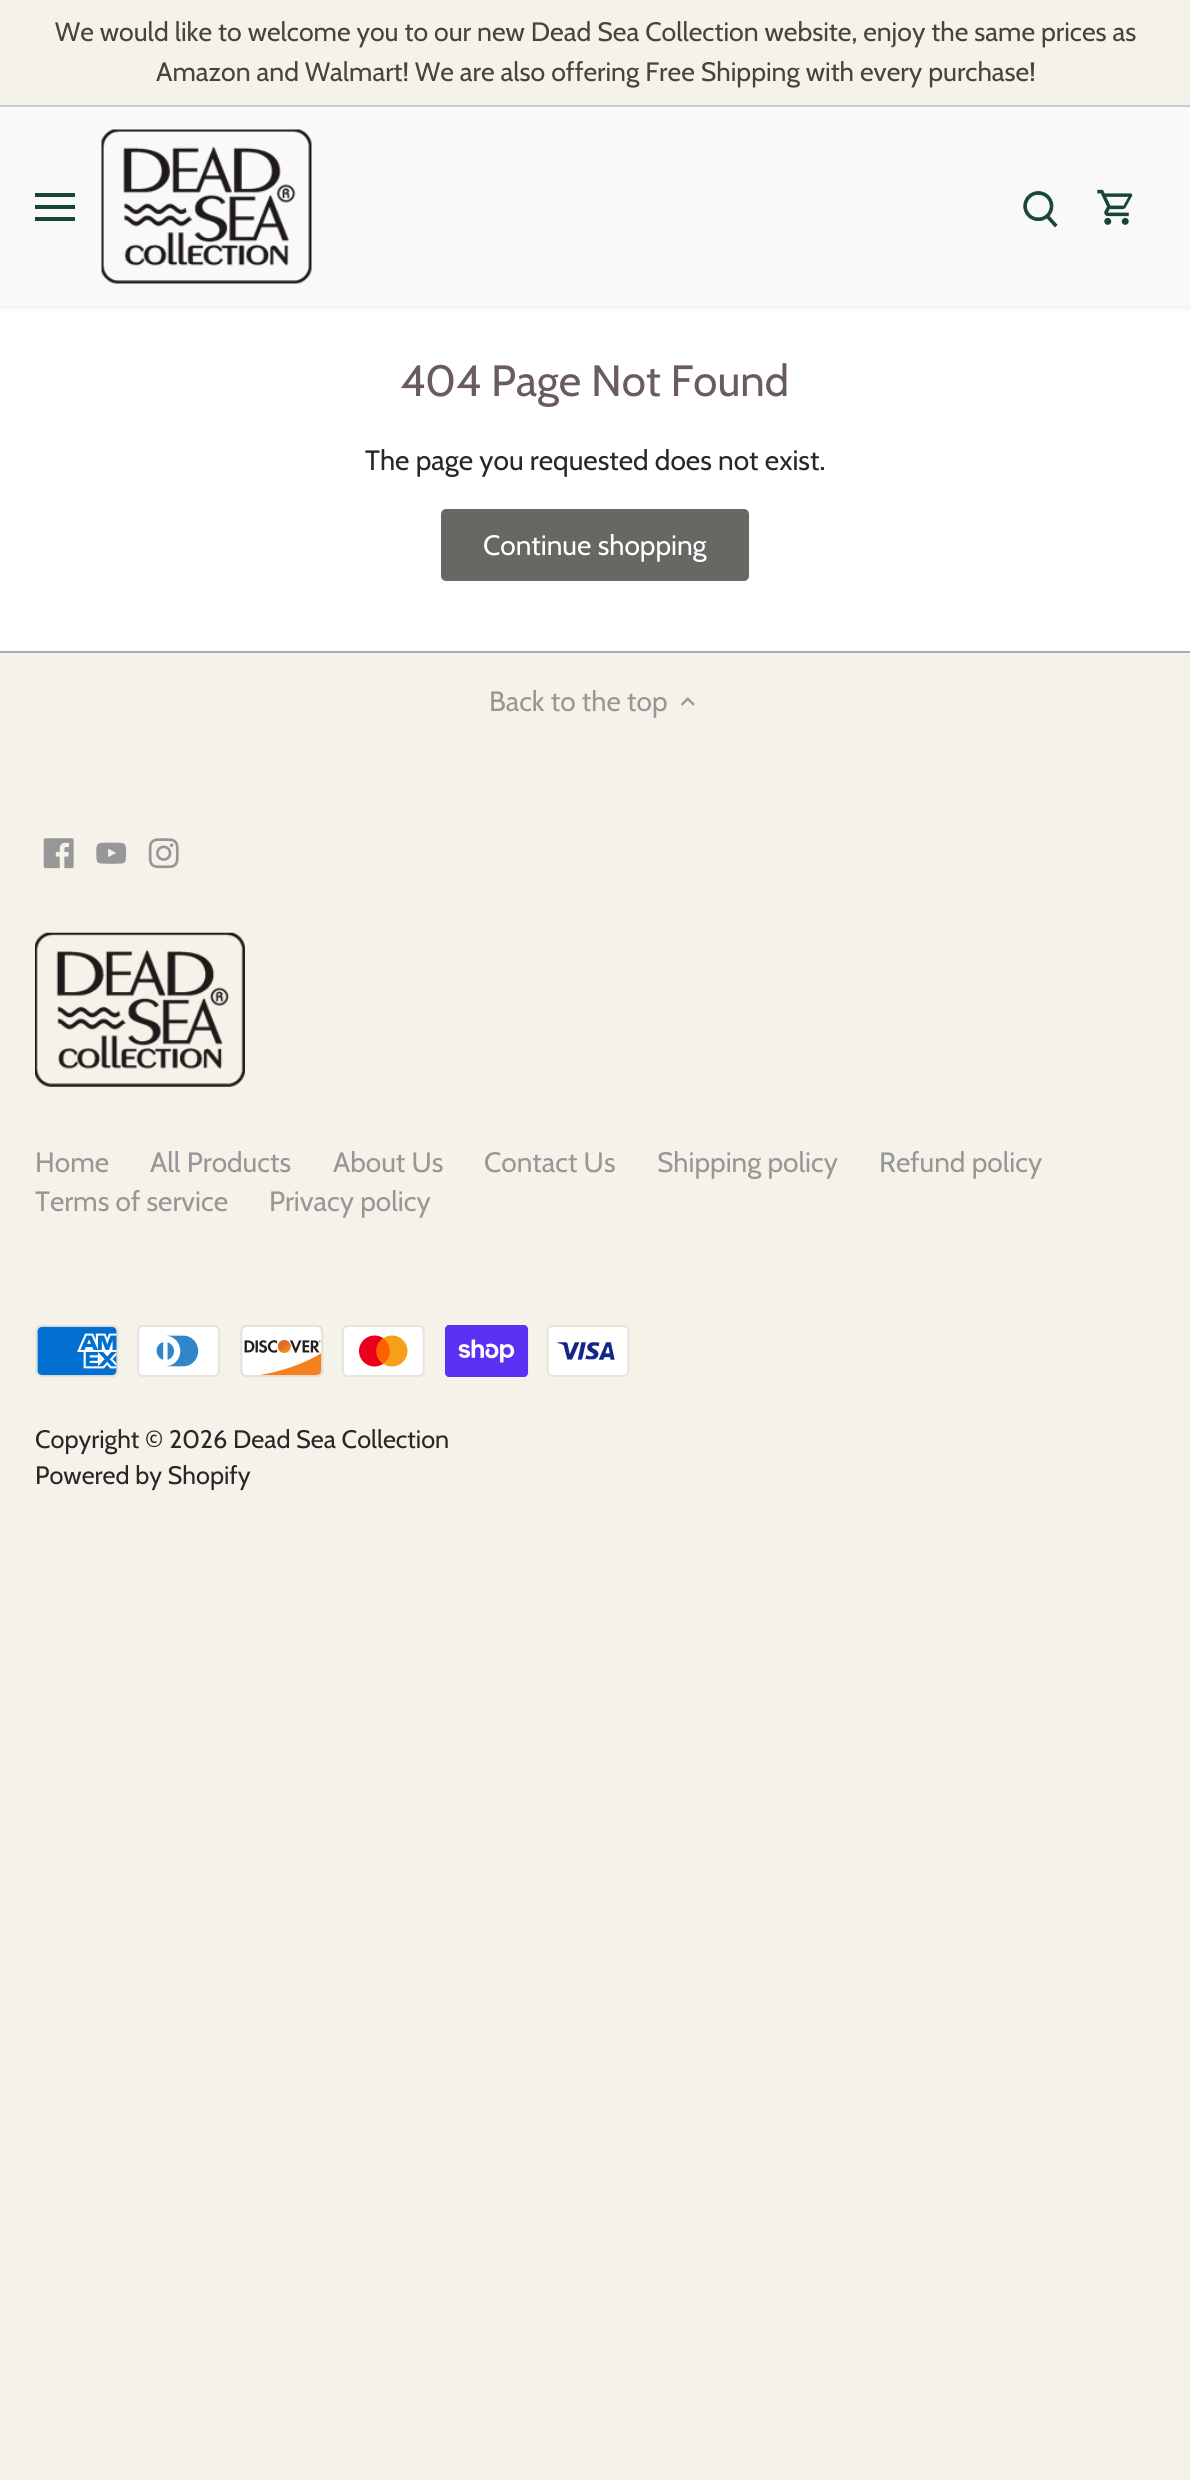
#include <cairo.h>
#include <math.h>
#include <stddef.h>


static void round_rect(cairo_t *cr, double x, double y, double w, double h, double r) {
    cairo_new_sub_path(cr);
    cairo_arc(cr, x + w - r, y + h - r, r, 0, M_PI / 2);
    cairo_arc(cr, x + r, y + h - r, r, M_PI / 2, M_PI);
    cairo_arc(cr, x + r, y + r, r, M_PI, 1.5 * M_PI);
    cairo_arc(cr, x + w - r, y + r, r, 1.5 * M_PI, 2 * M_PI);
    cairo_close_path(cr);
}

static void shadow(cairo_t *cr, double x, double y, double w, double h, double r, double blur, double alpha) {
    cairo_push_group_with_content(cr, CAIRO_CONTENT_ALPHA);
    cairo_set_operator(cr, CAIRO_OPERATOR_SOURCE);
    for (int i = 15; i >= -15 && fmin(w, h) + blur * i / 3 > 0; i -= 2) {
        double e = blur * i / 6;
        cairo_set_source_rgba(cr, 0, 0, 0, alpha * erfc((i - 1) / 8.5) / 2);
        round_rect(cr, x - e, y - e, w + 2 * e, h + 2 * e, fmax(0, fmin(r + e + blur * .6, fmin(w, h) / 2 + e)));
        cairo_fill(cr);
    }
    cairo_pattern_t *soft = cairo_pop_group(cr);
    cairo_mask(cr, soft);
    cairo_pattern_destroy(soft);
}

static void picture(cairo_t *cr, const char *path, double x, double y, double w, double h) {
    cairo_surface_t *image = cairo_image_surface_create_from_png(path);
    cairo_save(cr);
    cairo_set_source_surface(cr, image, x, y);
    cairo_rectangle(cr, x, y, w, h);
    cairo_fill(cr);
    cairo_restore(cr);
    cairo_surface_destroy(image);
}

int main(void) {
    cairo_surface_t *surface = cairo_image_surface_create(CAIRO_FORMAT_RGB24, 1190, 2480);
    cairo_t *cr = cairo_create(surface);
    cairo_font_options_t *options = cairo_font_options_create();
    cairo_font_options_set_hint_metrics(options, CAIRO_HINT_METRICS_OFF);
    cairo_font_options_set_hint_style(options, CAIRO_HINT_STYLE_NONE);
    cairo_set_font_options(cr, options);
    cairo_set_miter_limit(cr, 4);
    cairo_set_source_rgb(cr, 0.957, 0.949, 0.914);
    cairo_paint(cr);
    cairo_set_source_rgb(cr, 1, 1, 1);
    cairo_rectangle(cr, 0, 306, 1190, 345);
    cairo_fill(cr);
    cairo_set_source_rgb(cr, 0, 0, 0);
    shadow(cr, -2, 105, 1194, 203, 0, 2.5, 0.08);
    cairo_set_source_rgb(cr, 0.957, 0.949, 0.914);
    cairo_rectangle(cr, 0, 102, 1190, 3);
    cairo_fill(cr);
    cairo_set_source_rgb(cr, 0.757, 0.804, 0.784);
    cairo_rectangle(cr, 0, 105, 1190, 2);
    cairo_fill(cr);
    cairo_select_font_face(cr, "Cabin", CAIRO_FONT_SLANT_NORMAL, CAIRO_FONT_WEIGHT_NORMAL);
    cairo_set_font_size(cr, 26.6);
    cairo_set_source_rgb(cr, 0.282, 0.267, 0.235);
    cairo_move_to(cr, 55, 41);
    cairo_show_text(cr, "We would like to welcome you to our new Dead Sea Collection website, enjoy the same prices as");
    cairo_move_to(cr, 156, 81);
    cairo_show_text(cr, "Amazon and Walmart! We are also offering Free Shipping with every purchase!");
    cairo_set_source_rgb(cr, 0.976, 0.976, 0.976);
    cairo_rectangle(cr, 0, 107, 1190, 199);
    cairo_fill(cr);
    cairo_set_source_rgb(cr, 0.09, 0.278, 0.2);
    cairo_rectangle(cr, 35, 193, 40, 4);
    cairo_fill(cr);
    cairo_rectangle(cr, 35, 205, 40, 4);
    cairo_fill(cr);
    cairo_rectangle(cr, 35, 217, 40, 4);
    cairo_fill(cr);
    picture(cr, "img1.png", 101, 129, 211, 155);
    picture(cr, "img2.png", 1023, 191, 35, 37);
    picture(cr, "img3.png", 1097, 189, 36, 36);
    cairo_set_font_size(cr, 43.75);
    cairo_set_source_rgb(cr, 0.416, 0.357, 0.361);
    cairo_move_to(cr, 400, 396);
    cairo_show_text(cr, "404 Page Not Found");
    cairo_set_font_size(cr, 28);
    cairo_set_source_rgb(cr, 0.173, 0.145, 0.157);
    cairo_move_to(cr, 365, 470);
    cairo_show_text(cr, "The page you requested does not exist.");
    cairo_set_source_rgb(cr, 0.412, 0.404, 0.388);
    round_rect(cr, 443, 511, 304, 68, 3);
    cairo_fill_preserve(cr);
    cairo_set_line_width(cr, 4);
    cairo_stroke(cr);
    cairo_set_source_rgb(cr, 1, 1, 1);
    cairo_move_to(cr, 483, 555);
    cairo_show_text(cr, "Continue shopping");
    cairo_set_source_rgb(cr, 0.671, 0.671, 0.671);
    cairo_rectangle(cr, 0, 651, 1190, 2);
    cairo_fill(cr);
    cairo_set_source_rgb(cr, 0.592, 0.592, 0.592);
    cairo_move_to(cr, 489, 711);
    cairo_show_text(cr, "Back to the top");
    picture(cr, "img4.png", 680, 697, 15, 9);
    picture(cr, "img5.png", 43, 838, 31, 31);
    picture(cr, "img6.png", 96, 842, 31, 22);
    picture(cr, "img7.png", 148, 838, 31, 31);
    picture(cr, "img8.png", 35, 932, 210, 155);
    cairo_move_to(cr, 35, 1172);
    cairo_show_text(cr, "Home");
    cairo_move_to(cr, 150, 1172);
    cairo_show_text(cr, "All Products");
    cairo_move_to(cr, 333, 1172);
    cairo_show_text(cr, "About Us");
    cairo_move_to(cr, 484, 1172);
    cairo_show_text(cr, "Contact Us");
    cairo_move_to(cr, 657, 1172);
    cairo_show_text(cr, "Shipping policy");
    cairo_move_to(cr, 879, 1172);
    cairo_show_text(cr, "Refund policy");
    cairo_move_to(cr, 35, 1211);
    cairo_show_text(cr, "Terms of service");
    cairo_move_to(cr, 269, 1211);
    cairo_show_text(cr, "Privacy policy");
    picture(cr, "img9.png", 35, 1325, 84, 52);
    picture(cr, "img10.png", 137, 1325, 83, 52);
    picture(cr, "img11.png", 240, 1325, 84, 52);
    picture(cr, "img12.png", 341, 1325, 84, 52);
    picture(cr, "img13.png", 445, 1325, 84, 52);
    picture(cr, "img14.png", 546, 1325, 84, 52);
    cairo_set_font_size(cr, 25.25);
    cairo_set_source_rgb(cr, 0.173, 0.145, 0.157);
    cairo_move_to(cr, 35, 1448);
    cairo_show_text(cr, "Copyright © 2026 Dead Sea Collection");
    cairo_move_to(cr, 35, 1484);
    cairo_show_text(cr, "Powered by Shopify");
    cairo_surface_write_to_png(surface, "page.png");
    cairo_font_options_destroy(options);
    cairo_destroy(cr);
    cairo_surface_destroy(surface);
    return 0;
}
